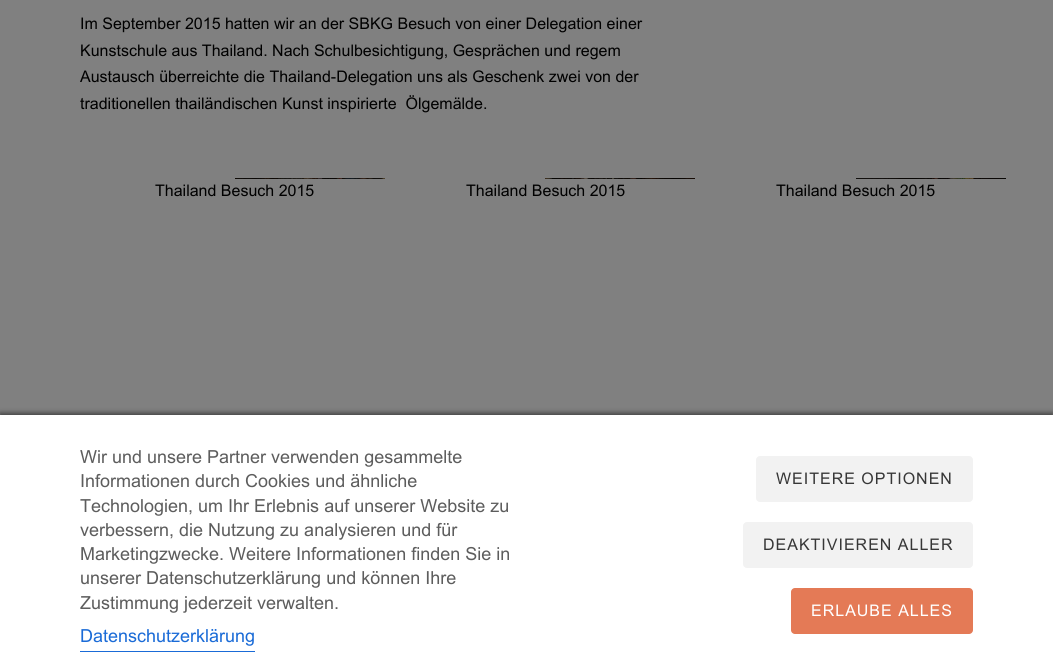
#include <cairo.h>
#include <math.h>
#include <stddef.h>


static void spaced_text(cairo_t *cr, double x, double y, const char *s, double letter, double word) {
    cairo_move_to(cr, x, y);
    while (*s) {
        char ch[5] = {0};
        int n = 0;
        do ch[n++] = *s++; while ((*s & 0xC0) == 0x80);
        cairo_show_text(cr, ch);
        cairo_rel_move_to(cr, letter + word * (*ch == ' '), 0);
    }
}

static void round_rect(cairo_t *cr, double x, double y, double w, double h, double r) {
    cairo_new_sub_path(cr);
    cairo_arc(cr, x + w - r, y + h - r, r, 0, M_PI / 2);
    cairo_arc(cr, x + r, y + h - r, r, M_PI / 2, M_PI);
    cairo_arc(cr, x + r, y + r, r, M_PI, 1.5 * M_PI);
    cairo_arc(cr, x + w - r, y + r, r, 1.5 * M_PI, 2 * M_PI);
    cairo_close_path(cr);
}

static void shadow(cairo_t *cr, double x, double y, double w, double h, double r, double blur, double alpha) {
    cairo_push_group_with_content(cr, CAIRO_CONTENT_ALPHA);
    cairo_set_operator(cr, CAIRO_OPERATOR_SOURCE);
    for (int i = 15; i >= -15 && fmin(w, h) + blur * i / 3 > 0; i -= 2) {
        double e = blur * i / 6;
        cairo_set_source_rgba(cr, 0, 0, 0, alpha * erfc((i - 1) / 8.5) / 2);
        round_rect(cr, x - e, y - e, w + 2 * e, h + 2 * e, fmax(0, fmin(r + e + blur * .6, fmin(w, h) / 2 + e)));
        cairo_fill(cr);
    }
    cairo_pattern_t *soft = cairo_pop_group(cr);
    cairo_mask(cr, soft);
    cairo_pattern_destroy(soft);
}

static void picture(cairo_t *cr, const char *path, double x, double y, double w, double h) {
    cairo_surface_t *image = cairo_image_surface_create_from_png(path);
    cairo_save(cr);
    cairo_set_source_surface(cr, image, x, y);
    cairo_rectangle(cr, x, y, w, h);
    cairo_fill(cr);
    cairo_restore(cr);
    cairo_surface_destroy(image);
}

int main(void) {
    cairo_surface_t *surface = cairo_image_surface_create(CAIRO_FORMAT_RGB24, 1053, 670);
    cairo_t *cr = cairo_create(surface);
    cairo_font_options_t *options = cairo_font_options_create();
    cairo_font_options_set_hint_metrics(options, CAIRO_HINT_METRICS_OFF);
    cairo_font_options_set_hint_style(options, CAIRO_HINT_STYLE_NONE);
    cairo_set_font_options(cr, options);
    cairo_set_miter_limit(cr, 4);
    cairo_set_source_rgb(cr, 0.502, 0.502, 0.502);
    cairo_paint(cr);
    cairo_select_font_face(cr, "Arial", CAIRO_FONT_SLANT_NORMAL, CAIRO_FONT_WEIGHT_NORMAL);
    cairo_set_font_size(cr, 16);
    cairo_set_source_rgb(cr, 0, 0, 0);
    cairo_move_to(cr, 80, 29);
    cairo_show_text(cr, "Im September 2015 hatten wir an der SBKG Besuch von einer Delegation einer");
    cairo_move_to(cr, 80, 56);
    cairo_show_text(cr, "Kunstschule aus Thailand. Nach Schulbesichtigung, Gesprächen und regem");
    cairo_move_to(cr, 80, 82);
    cairo_show_text(cr, "Austausch überreichte die Thailand-Delegation uns als Geschenk zwei von der");
    cairo_move_to(cr, 80, 109);
    cairo_show_text(cr, "traditionellen thailändischen Kunst inspirierte  Ölgemälde.");
    picture(cr, "img1.png", 235, 178, 150, 1);
    cairo_move_to(cr, 155, 196);
    cairo_show_text(cr, "Thailand Besuch 2015");
    picture(cr, "img2.png", 545, 178, 150, 1);
    cairo_move_to(cr, 466, 196);
    cairo_show_text(cr, "Thailand Besuch 2015");
    picture(cr, "img3.png", 856, 178, 150, 1);
    cairo_move_to(cr, 776, 196);
    cairo_show_text(cr, "Thailand Besuch 2015");
    cairo_set_source_rgb(cr, 0, 0, 0);
    shadow(cr, 0, 413, 1053, 255, 0, 2.5, 0.5);
    cairo_set_source_rgb(cr, 1, 1, 1);
    cairo_rectangle(cr, 0, 415, 1053, 255);
    cairo_fill(cr);
    cairo_set_font_size(cr, 18);
    cairo_set_source_rgb(cr, 0.365, 0.365, 0.365);
    cairo_move_to(cr, 80, 463);
    cairo_show_text(cr, "Wir und unsere Partner verwenden gesammelte");
    cairo_move_to(cr, 80, 487);
    cairo_show_text(cr, "Informationen durch Cookies und ähnliche");
    cairo_move_to(cr, 80, 512);
    cairo_show_text(cr, "Technologien, um Ihr Erlebnis auf unserer Website zu");
    cairo_move_to(cr, 80, 536);
    cairo_show_text(cr, "verbessern, die Nutzung zu analysieren und für");
    cairo_move_to(cr, 80, 560);
    cairo_show_text(cr, "Marketingzwecke. Weitere Informationen finden Sie in");
    cairo_move_to(cr, 80, 584);
    cairo_show_text(cr, "unserer Datenschutzerklärung und können Ihre");
    cairo_move_to(cr, 80, 609);
    cairo_show_text(cr, "Zustimmung jederzeit verwalten.");
    cairo_set_source_rgb(cr, 0.102, 0.42, 0.843);
    cairo_move_to(cr, 80, 642);
    cairo_show_text(cr, "Datenschutzerklärung");
    cairo_rectangle(cr, 80, 651, 175, 1);
    cairo_fill(cr);
    cairo_set_source_rgb(cr, 0.949, 0.949, 0.949);
    round_rect(cr, 756, 456, 217, 46, 4);
    cairo_fill(cr);
    cairo_set_font_size(cr, 16);
    cairo_set_source_rgb(cr, 0.216, 0.216, 0.216);
    spaced_text(cr, 776, 484, "WEITERE OPTIONEN", 1, 0);
    cairo_set_source_rgb(cr, 0.949, 0.949, 0.949);
    round_rect(cr, 743, 522, 230, 46, 4);
    cairo_fill(cr);
    cairo_set_source_rgb(cr, 0.216, 0.216, 0.216);
    spaced_text(cr, 763, 550, "DEAKTIVIEREN ALLER", 1, 0);
    cairo_set_source_rgb(cr, 0.894, 0.478, 0.337);
    round_rect(cr, 791, 588, 182, 46, 4);
    cairo_fill(cr);
    cairo_set_source_rgb(cr, 1, 1, 1);
    spaced_text(cr, 811, 616, "ERLAUBE ALLES", 1, 0);
    cairo_surface_write_to_png(surface, "page.png");
    cairo_font_options_destroy(options);
    cairo_destroy(cr);
    cairo_surface_destroy(surface);
    return 0;
}
